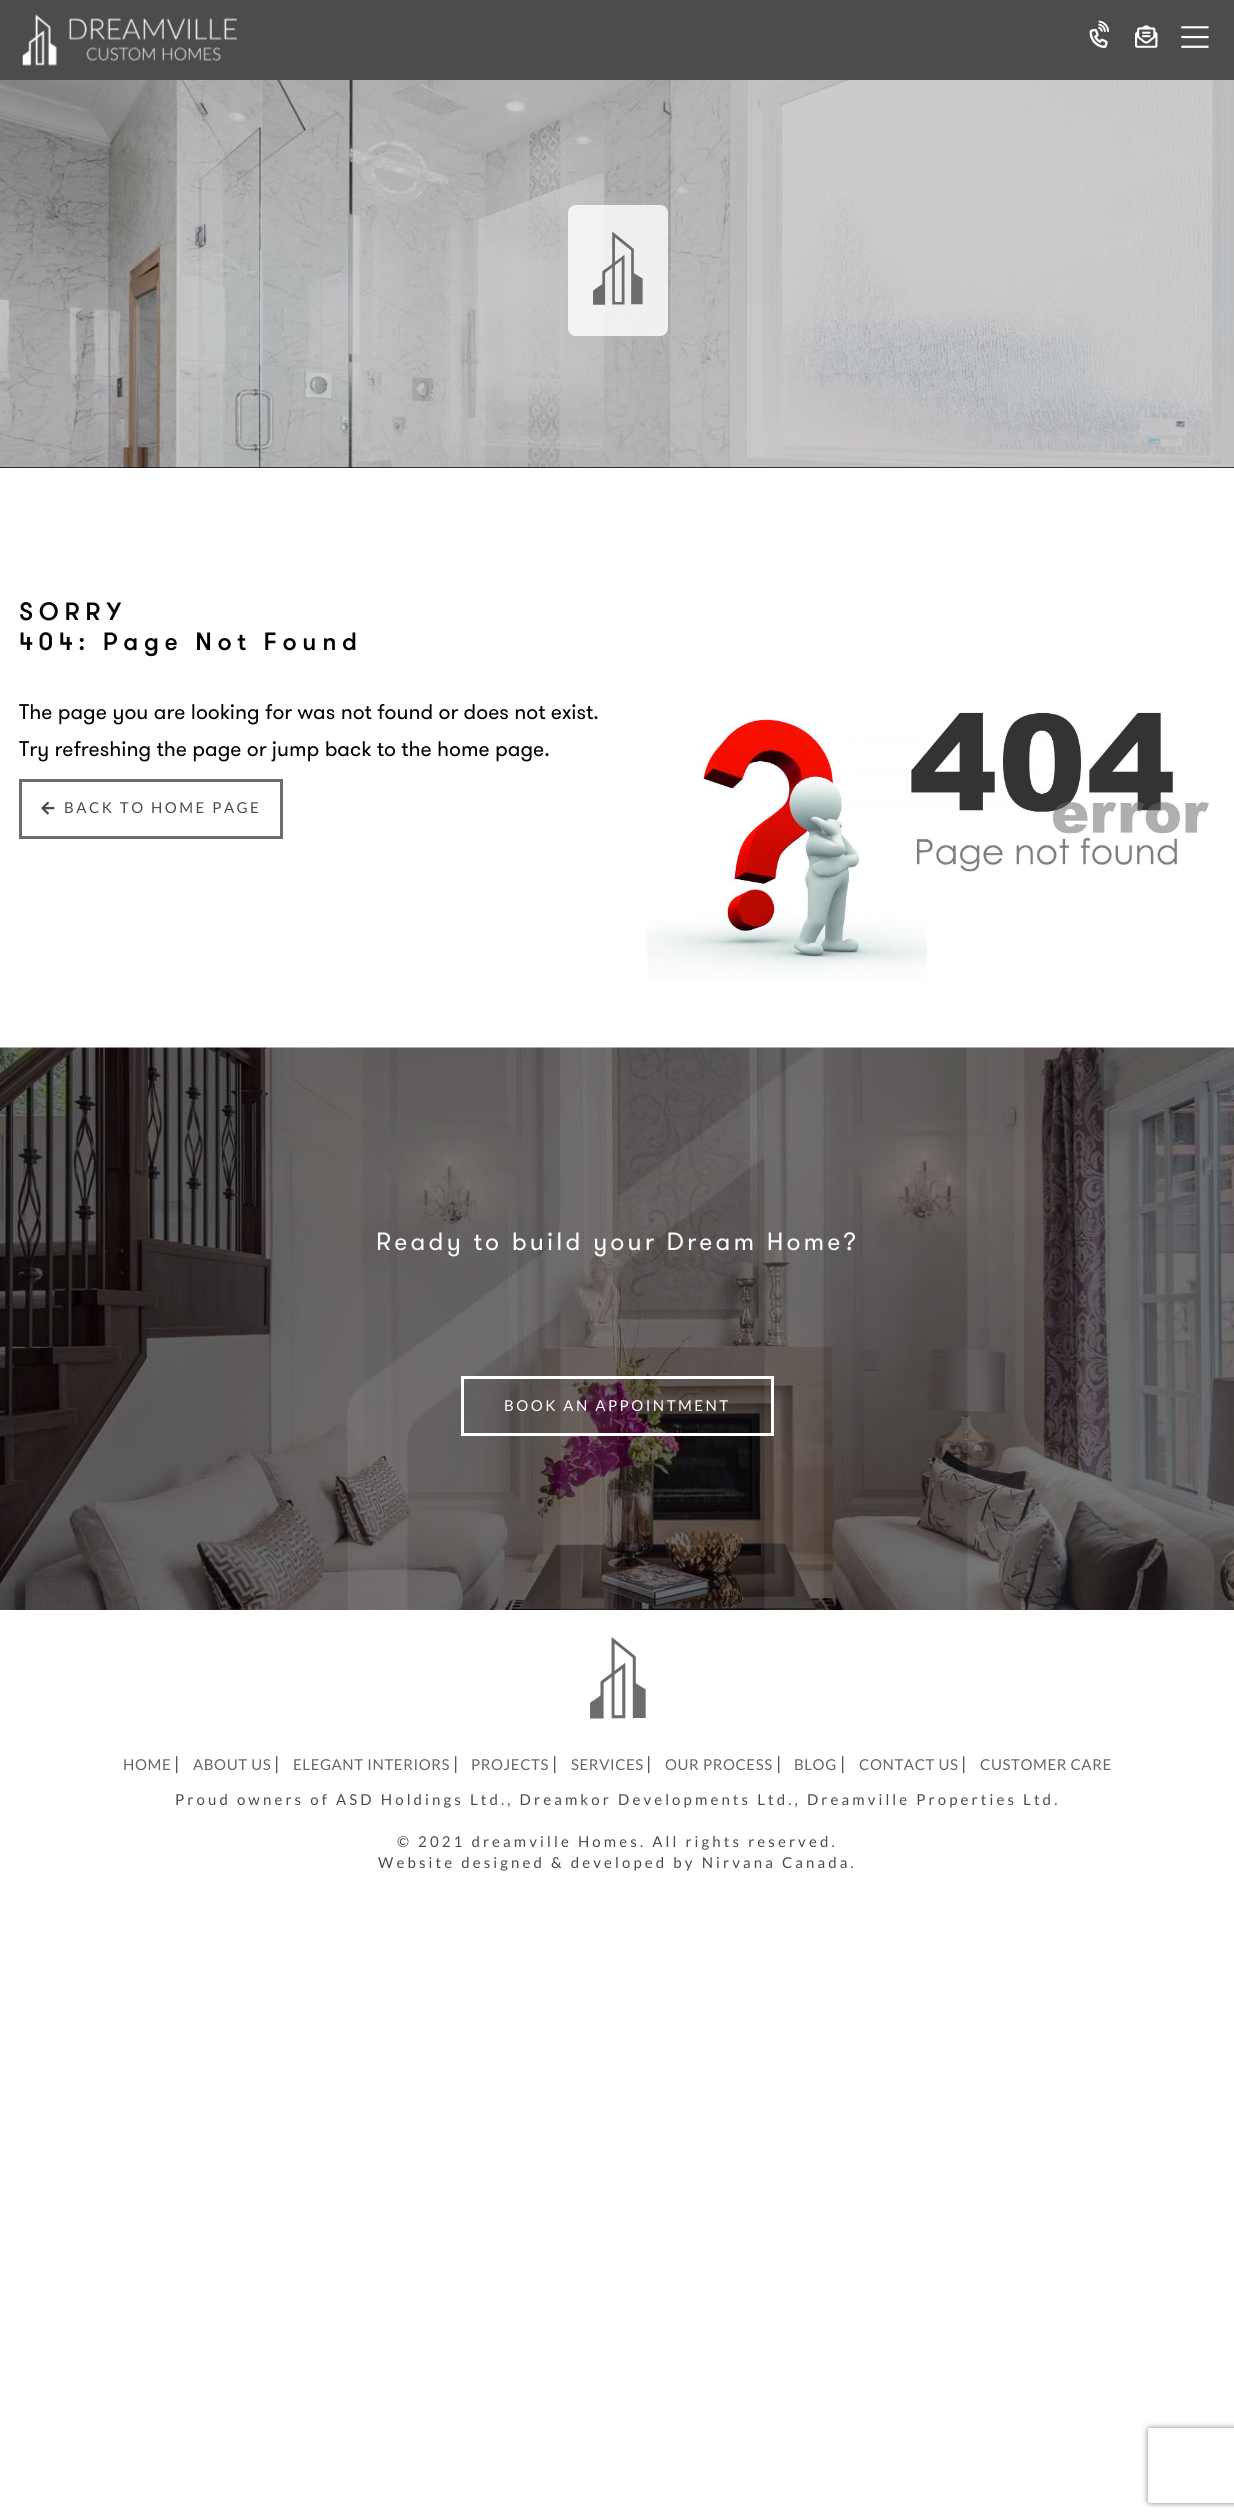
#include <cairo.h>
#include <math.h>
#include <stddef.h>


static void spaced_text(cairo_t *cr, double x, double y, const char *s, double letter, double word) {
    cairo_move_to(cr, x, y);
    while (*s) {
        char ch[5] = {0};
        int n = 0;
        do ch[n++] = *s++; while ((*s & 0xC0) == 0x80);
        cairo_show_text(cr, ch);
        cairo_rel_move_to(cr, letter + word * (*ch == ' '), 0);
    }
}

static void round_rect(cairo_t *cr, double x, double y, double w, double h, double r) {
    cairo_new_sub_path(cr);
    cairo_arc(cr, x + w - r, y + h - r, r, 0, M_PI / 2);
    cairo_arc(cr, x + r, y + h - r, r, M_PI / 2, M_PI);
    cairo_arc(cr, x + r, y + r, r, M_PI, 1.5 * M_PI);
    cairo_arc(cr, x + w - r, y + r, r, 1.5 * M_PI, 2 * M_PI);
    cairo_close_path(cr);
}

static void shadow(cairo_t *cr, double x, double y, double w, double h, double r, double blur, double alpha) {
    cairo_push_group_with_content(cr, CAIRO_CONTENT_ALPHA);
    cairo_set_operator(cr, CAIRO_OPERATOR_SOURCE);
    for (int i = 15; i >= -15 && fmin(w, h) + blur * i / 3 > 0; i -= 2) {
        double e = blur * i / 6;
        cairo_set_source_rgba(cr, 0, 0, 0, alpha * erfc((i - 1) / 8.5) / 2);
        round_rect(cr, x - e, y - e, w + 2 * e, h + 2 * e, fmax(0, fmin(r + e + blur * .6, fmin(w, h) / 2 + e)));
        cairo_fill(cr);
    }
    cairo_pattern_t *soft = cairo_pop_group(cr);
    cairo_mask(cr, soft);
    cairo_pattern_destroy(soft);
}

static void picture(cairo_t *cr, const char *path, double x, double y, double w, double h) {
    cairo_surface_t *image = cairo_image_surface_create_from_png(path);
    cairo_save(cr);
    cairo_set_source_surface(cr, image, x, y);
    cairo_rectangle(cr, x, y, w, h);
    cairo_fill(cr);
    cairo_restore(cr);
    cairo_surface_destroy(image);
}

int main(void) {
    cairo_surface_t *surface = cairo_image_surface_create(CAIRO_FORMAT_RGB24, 1234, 2520);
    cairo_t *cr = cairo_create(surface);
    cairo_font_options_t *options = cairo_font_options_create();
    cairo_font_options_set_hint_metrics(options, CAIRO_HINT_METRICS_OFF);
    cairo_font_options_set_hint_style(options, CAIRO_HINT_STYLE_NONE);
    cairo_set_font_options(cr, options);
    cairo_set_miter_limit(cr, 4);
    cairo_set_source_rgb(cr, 1, 1, 1);
    cairo_paint(cr);
    cairo_set_source_rgb(cr, 0.302, 0.298, 0.298);
    cairo_rectangle(cr, 0, 0, 1234, 80);
    cairo_fill(cr);
    picture(cr, "img1.png", 22, 14, 215, 52);
    picture(cr, "img2.png", 1089, 20, 20, 28);
    picture(cr, "img3.png", 1135, 25, 23, 23);
    picture(cr, "img4.png", 1181, 26, 28, 22);
    cairo_set_source_rgb(cr, 0, 0, 0);
    cairo_rectangle(cr, 0, 80, 1234, 388);
    cairo_fill(cr);
    picture(cr, "img5.png", 0, 80, 1234, 388);
    cairo_set_source_rgba(cr, 1, 1, 1, 0.8);
    round_rect(cr, 568, 205, 100, 131, 8);
    cairo_fill(cr);
    picture(cr, "img6.png", 593, 231, 50, 74);
    cairo_select_font_face(cr, "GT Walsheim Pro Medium", CAIRO_FONT_SLANT_NORMAL, CAIRO_FONT_WEIGHT_NORMAL);
    cairo_set_font_size(cr, 25);
    cairo_set_source_rgb(cr, 0, 0, 0);
    spaced_text(cr, 19, 620, "SORRY", 5.6, 0);
    spaced_text(cr, 19, 650, "404: Page Not Found", 5.6, 0);
    cairo_select_font_face(cr, "GT Walsheim Pro", CAIRO_FONT_SLANT_NORMAL, CAIRO_FONT_WEIGHT_NORMAL);
    cairo_set_font_size(cr, 21.25);
    cairo_move_to(cr, 19, 719);
    cairo_show_text(cr, "The page you are looking for was not found or does not exist.");
    cairo_move_to(cr, 19, 756);
    cairo_show_text(cr, "Try refreshing the page or jump back to the home page.");
    cairo_rectangle(cr, 20.5, 780.5, 261, 57);
    cairo_set_source_rgb(cr, 0.427, 0.427, 0.427);
    cairo_set_line_width(cr, 3);
    cairo_stroke(cr);
    picture(cr, "img7.png", 41, 801, 14, 14);
    cairo_select_font_face(cr, "Lato", CAIRO_FONT_SLANT_NORMAL, CAIRO_FONT_WEIGHT_NORMAL);
    cairo_set_font_size(cr, 15);
    cairo_set_source_rgb(cr, 0.294, 0.294, 0.294);
    spaced_text(cr, 64, 813, "BACK TO HOME PAGE", 2.5, 0);
    picture(cr, "img8.png", 647, 712, 562, 267);
    picture(cr, "img9.png", 0, 1047, 1234, 563);
    cairo_select_font_face(cr, "GT Walsheim Pro", CAIRO_FONT_SLANT_NORMAL, CAIRO_FONT_WEIGHT_NORMAL);
    cairo_set_font_size(cr, 25);
    cairo_set_source_rgb(cr, 1, 1, 1);
    spaced_text(cr, 376, 1250, "Ready to build your Dream Home?", 3.12, 0);
    cairo_rectangle(cr, 462.5, 1377.5, 310, 57);
    cairo_stroke(cr);
    cairo_select_font_face(cr, "Lato", CAIRO_FONT_SLANT_NORMAL, CAIRO_FONT_WEIGHT_NORMAL);
    cairo_set_font_size(cr, 15);
    spaced_text(cr, 504, 1411, "BOOK AN APPOINTMENT", 2.5, 0);
    picture(cr, "img10.png", 590, 1637, 56, 82);
    cairo_set_source_rgb(cr, 0.408, 0.392, 0.38);
    spaced_text(cr, 123, 1770, "HOME", 0.6, 0);
    cairo_set_font_size(cr, 18);
    cairo_set_source_rgb(cr, 0.294, 0.294, 0.294);
    spaced_text(cr, 174, 1770, "|", 0.6, 0);
    cairo_set_font_size(cr, 15);
    cairo_set_source_rgb(cr, 0.408, 0.392, 0.38);
    spaced_text(cr, 193, 1770, "ABOUT US", 0.6, 0);
    cairo_set_font_size(cr, 18);
    cairo_set_source_rgb(cr, 0.294, 0.294, 0.294);
    spaced_text(cr, 274, 1770, "|", 0.6, 0);
    cairo_set_font_size(cr, 15);
    cairo_set_source_rgb(cr, 0.408, 0.392, 0.38);
    spaced_text(cr, 293, 1770, "ELEGANT INTERIORS", 0.6, 0);
    cairo_set_font_size(cr, 18);
    cairo_set_source_rgb(cr, 0.294, 0.294, 0.294);
    spaced_text(cr, 453, 1770, "|", 0.6, 0);
    cairo_set_font_size(cr, 15);
    cairo_set_source_rgb(cr, 0.408, 0.392, 0.38);
    spaced_text(cr, 471, 1770, "PROJECTS", 0.6, 0);
    cairo_set_font_size(cr, 18);
    cairo_set_source_rgb(cr, 0.294, 0.294, 0.294);
    spaced_text(cr, 552, 1770, "|", 0.6, 0);
    cairo_set_font_size(cr, 15);
    cairo_set_source_rgb(cr, 0.408, 0.392, 0.38);
    spaced_text(cr, 571, 1770, "SERVICES", 0.6, 0);
    cairo_set_font_size(cr, 18);
    cairo_set_source_rgb(cr, 0.294, 0.294, 0.294);
    spaced_text(cr, 646, 1770, "|", 0.6, 0);
    cairo_set_font_size(cr, 15);
    cairo_set_source_rgb(cr, 0.408, 0.392, 0.38);
    spaced_text(cr, 665, 1770, "OUR PROCESS", 0.6, 0);
    cairo_set_font_size(cr, 18);
    cairo_set_source_rgb(cr, 0.294, 0.294, 0.294);
    spaced_text(cr, 776, 1770, "|", 0.6, 0);
    cairo_set_font_size(cr, 15);
    cairo_set_source_rgb(cr, 0.408, 0.392, 0.38);
    spaced_text(cr, 794, 1770, "BLOG", 0.6, 0);
    cairo_set_font_size(cr, 18);
    cairo_set_source_rgb(cr, 0.294, 0.294, 0.294);
    spaced_text(cr, 840, 1770, "|", 0.6, 0);
    cairo_set_font_size(cr, 15);
    cairo_set_source_rgb(cr, 0.408, 0.392, 0.38);
    spaced_text(cr, 859, 1770, "CONTACT US", 0.6, 0);
    cairo_set_font_size(cr, 18);
    cairo_set_source_rgb(cr, 0.294, 0.294, 0.294);
    spaced_text(cr, 961, 1770, "|", 0.6, 0);
    cairo_set_font_size(cr, 15);
    cairo_set_source_rgb(cr, 0.408, 0.392, 0.38);
    spaced_text(cr, 980, 1770, "CUSTOMER CARE", 0.6, 0);
    cairo_set_source_rgb(cr, 0.294, 0.294, 0.294);
    spaced_text(cr, 175, 1805, "Proud owners of ASD Holdings Ltd., Dreamkor Developments Ltd., Dreamville Properties Ltd.", 3.12, 0);
    spaced_text(cr, 397, 1847, "© 2021 dreamville Homes. All rights reserved.", 3.12, 0);
    spaced_text(cr, 378, 1868, "Website designed & developed by Nirvana Canada.", 3.12, 0);
    cairo_save(cr);
    cairo_set_fill_rule(cr, CAIRO_FILL_RULE_EVEN_ODD);
    cairo_new_path(cr);
    cairo_move_to(cr, 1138, 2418);
    cairo_line_to(cr, 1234, 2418);
    cairo_line_to(cr, 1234, 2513);
    cairo_line_to(cr, 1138, 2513);
    cairo_close_path(cr);
    cairo_move_to(cr, 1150.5, 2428);
    cairo_line_to(cr, 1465.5, 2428);
    cairo_curve_to(cr, 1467, 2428, 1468, 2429, 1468, 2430.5);
    cairo_line_to(cr, 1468, 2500.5);
    cairo_curve_to(cr, 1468, 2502, 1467, 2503, 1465.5, 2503);
    cairo_line_to(cr, 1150.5, 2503);
    cairo_curve_to(cr, 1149, 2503, 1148, 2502, 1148, 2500.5);
    cairo_line_to(cr, 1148, 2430.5);
    cairo_curve_to(cr, 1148, 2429, 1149, 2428, 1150.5, 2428);
    cairo_close_path(cr);
    cairo_clip(cr);
    cairo_set_source_rgb(cr, 0.502, 0.502, 0.502);
    shadow(cr, 1148, 2428, 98, 75, 2.5, 3, 1);
    cairo_restore(cr);
    cairo_surface_write_to_png(surface, "page.png");
    cairo_font_options_destroy(options);
    cairo_destroy(cr);
    cairo_surface_destroy(surface);
    return 0;
}
